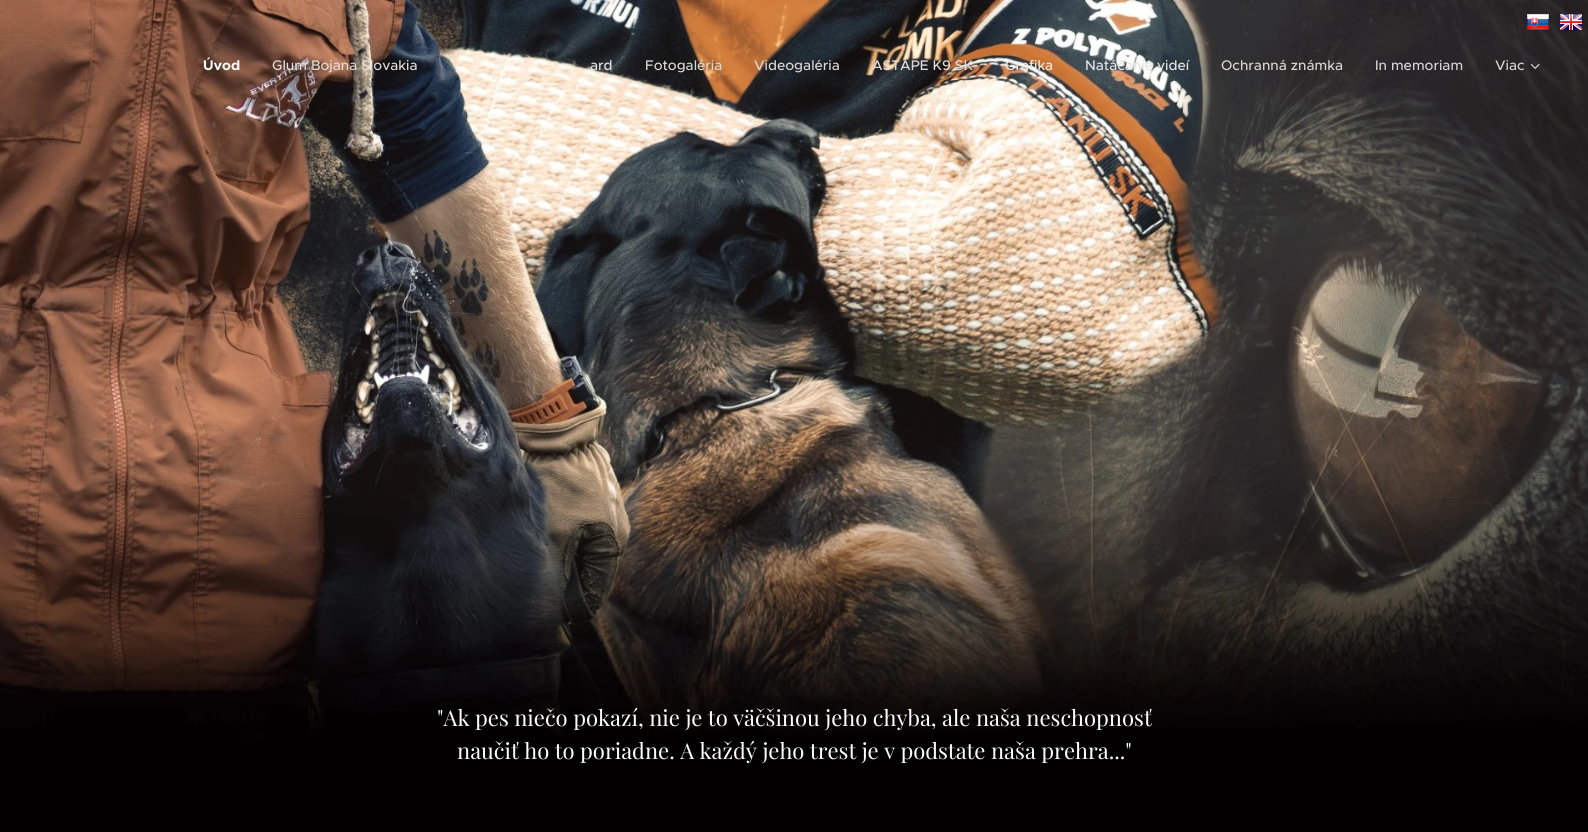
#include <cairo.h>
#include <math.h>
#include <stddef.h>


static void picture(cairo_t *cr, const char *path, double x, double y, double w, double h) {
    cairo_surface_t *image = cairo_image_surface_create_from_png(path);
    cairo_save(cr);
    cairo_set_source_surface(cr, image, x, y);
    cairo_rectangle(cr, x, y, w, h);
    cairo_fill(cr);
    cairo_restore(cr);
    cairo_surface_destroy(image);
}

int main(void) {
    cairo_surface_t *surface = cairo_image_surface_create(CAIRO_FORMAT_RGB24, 1588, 832);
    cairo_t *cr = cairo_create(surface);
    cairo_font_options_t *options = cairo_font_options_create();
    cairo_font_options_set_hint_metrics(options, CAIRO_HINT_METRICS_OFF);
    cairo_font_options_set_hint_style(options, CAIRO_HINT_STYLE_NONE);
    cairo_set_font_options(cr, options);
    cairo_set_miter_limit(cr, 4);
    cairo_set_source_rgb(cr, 1, 1, 1);
    cairo_paint(cr);
    picture(cr, "img4.png", 0, 0, 1588, 832);
    picture(cr, "img1.png", 1527, 14, 22, 17);
    picture(cr, "img2.png", 1559, 14, 24, 17);
    cairo_select_font_face(cr, "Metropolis", CAIRO_FONT_SLANT_NORMAL, CAIRO_FONT_WEIGHT_BOLD);
    cairo_set_font_size(cr, 14);
    cairo_set_source_rgb(cr, 1, 1, 1);
    cairo_move_to(cr, 203, 70);
    cairo_show_text(cr, "Úvod");
    cairo_select_font_face(cr, "Metropolis Medium", CAIRO_FONT_SLANT_NORMAL, CAIRO_FONT_WEIGHT_NORMAL);
    cairo_set_source_rgb(cr, 0.878, 0.859, 0.851);
    cairo_move_to(cr, 272, 70);
    cairo_show_text(cr, "Glum Bojana Slovakia");
    cairo_set_source_rgb(cr, 0.898, 0.898, 0.894);
    cairo_move_to(cr, 590, 70);
    cairo_show_text(cr, "ard");
    cairo_set_source_rgb(cr, 0.855, 0.839, 0.827);
    cairo_move_to(cr, 645, 70);
    cairo_show_text(cr, "Fotogaléria");
    cairo_move_to(cr, 754, 70);
    cairo_show_text(cr, "Videogaléria");
    cairo_set_source_rgb(cr, 0.878, 0.859, 0.851);
    cairo_move_to(cr, 872, 70);
    cairo_show_text(cr, "ASTAPE K9 SK");
    cairo_set_source_rgb(cr, 0.937, 0.914, 0.894);
    cairo_move_to(cr, 1005, 70);
    cairo_show_text(cr, "Grafika");
    cairo_set_source_rgb(cr, 0.898, 0.898, 0.894);
    cairo_move_to(cr, 1085, 70);
    cairo_show_text(cr, "Natáčanie videí");
    cairo_set_source_rgb(cr, 0.855, 0.839, 0.827);
    cairo_move_to(cr, 1221, 70);
    cairo_show_text(cr, "Ochranná známka");
    cairo_set_source_rgb(cr, 0.831, 0.831, 0.831);
    cairo_move_to(cr, 1375, 70);
    cairo_show_text(cr, "In memoriam");
    cairo_move_to(cr, 1495, 70);
    cairo_show_text(cr, "Viac");
    picture(cr, "img3.png", 1530, 63, 10, 6);
    cairo_select_font_face(cr, "Playfair Display", CAIRO_FONT_SLANT_NORMAL, CAIRO_FONT_WEIGHT_NORMAL);
    cairo_set_font_size(cr, 22);
    cairo_set_source_rgb(cr, 1, 1, 1);
    cairo_move_to(cr, 437, 726);
    cairo_show_text(cr, "\"Ak pes niečo pokazí, nie je to väčšinou jeho chyba, ale naša neschopnosť");
    cairo_move_to(cr, 457, 759);
    cairo_show_text(cr, "naučiť ho to poriadne. A každý jeho trest je v podstate naša prehra...\"");
    cairo_surface_write_to_png(surface, "page.png");
    cairo_font_options_destroy(options);
    cairo_destroy(cr);
    cairo_surface_destroy(surface);
    return 0;
}
